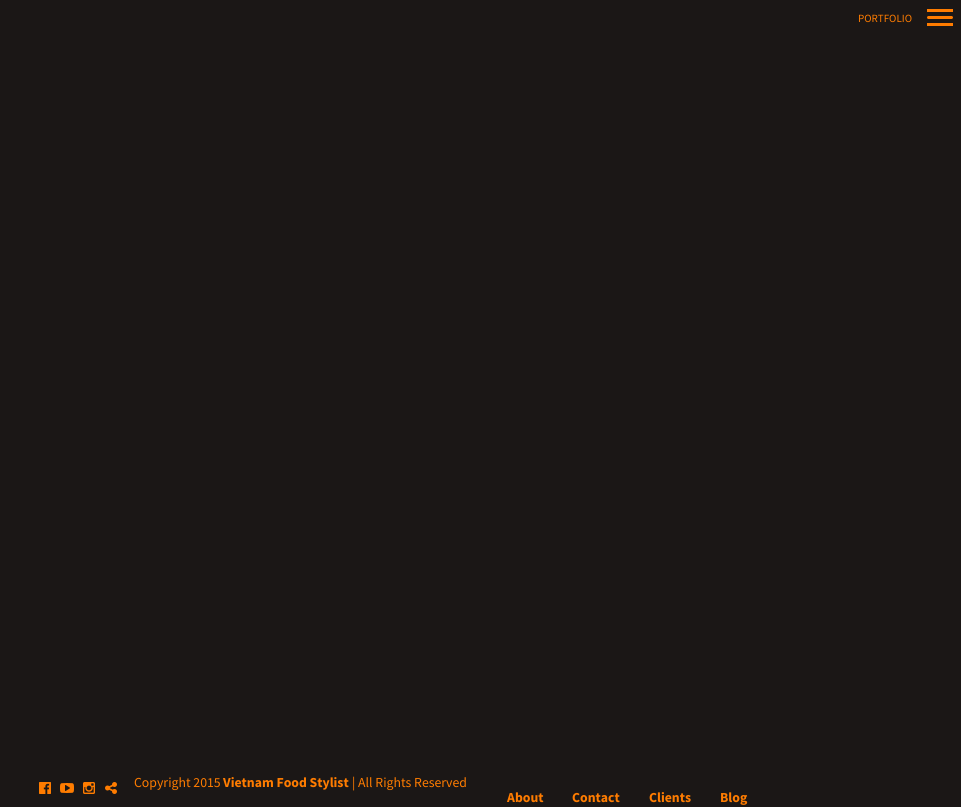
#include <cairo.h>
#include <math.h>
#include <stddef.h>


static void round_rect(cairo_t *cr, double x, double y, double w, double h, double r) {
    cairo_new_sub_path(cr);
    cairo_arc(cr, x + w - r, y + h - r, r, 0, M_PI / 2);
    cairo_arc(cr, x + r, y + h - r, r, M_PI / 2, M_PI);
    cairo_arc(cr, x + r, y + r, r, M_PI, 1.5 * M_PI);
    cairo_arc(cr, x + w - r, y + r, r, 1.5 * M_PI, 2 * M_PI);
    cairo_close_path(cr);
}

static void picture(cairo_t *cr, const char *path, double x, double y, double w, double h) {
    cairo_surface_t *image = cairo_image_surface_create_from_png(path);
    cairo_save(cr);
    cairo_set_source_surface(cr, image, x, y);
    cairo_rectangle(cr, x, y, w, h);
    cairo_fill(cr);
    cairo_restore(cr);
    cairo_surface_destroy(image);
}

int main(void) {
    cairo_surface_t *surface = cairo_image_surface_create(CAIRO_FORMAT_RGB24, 961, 807);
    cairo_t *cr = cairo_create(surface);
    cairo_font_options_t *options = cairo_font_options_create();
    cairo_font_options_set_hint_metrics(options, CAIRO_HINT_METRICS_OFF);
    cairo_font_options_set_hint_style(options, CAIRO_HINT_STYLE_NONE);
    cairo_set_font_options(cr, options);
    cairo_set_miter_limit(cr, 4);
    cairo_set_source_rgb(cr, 0.106, 0.09, 0.086);
    cairo_paint(cr);
    cairo_select_font_face(cr, "Source Sans Pro", CAIRO_FONT_SLANT_NORMAL, CAIRO_FONT_WEIGHT_NORMAL);
    cairo_set_font_size(cr, 11);
    cairo_set_source_rgb(cr, 1, 0.486, 0);
    cairo_move_to(cr, 858, 22);
    cairo_show_text(cr, "PORTFOLIO");
    round_rect(cr, 927, 16, 26, 3, 1.5);
    cairo_fill(cr);
    cairo_rectangle(cr, 927, 9, 26, 3);
    cairo_fill(cr);
    cairo_rectangle(cr, 927, 23, 26, 3);
    cairo_fill(cr);
    picture(cr, "img1.png", 39, 782, 12, 12);
    picture(cr, "img2.png", 60, 783, 14, 10);
    picture(cr, "img3.png", 83, 782, 12, 12);
    picture(cr, "img4.png", 105, 782, 12, 12);
    cairo_set_font_size(cr, 13.75);
    cairo_move_to(cr, 134, 787);
    cairo_show_text(cr, "Copyright 2015");
    cairo_select_font_face(cr, "Source Sans Pro", CAIRO_FONT_SLANT_NORMAL, CAIRO_FONT_WEIGHT_BOLD);
    cairo_move_to(cr, 223, 787);
    cairo_show_text(cr, "Vietnam Food Stylist");
    cairo_select_font_face(cr, "Source Sans Pro", CAIRO_FONT_SLANT_NORMAL, CAIRO_FONT_WEIGHT_NORMAL);
    cairo_move_to(cr, 352, 787);
    cairo_show_text(cr, "| All Rights Reserved");
    cairo_select_font_face(cr, "Source Sans Pro", CAIRO_FONT_SLANT_NORMAL, CAIRO_FONT_WEIGHT_BOLD);
    cairo_move_to(cr, 507, 802);
    cairo_show_text(cr, "About");
    cairo_move_to(cr, 572, 802);
    cairo_show_text(cr, "Contact");
    cairo_move_to(cr, 649, 802);
    cairo_show_text(cr, "Clients");
    cairo_move_to(cr, 720, 802);
    cairo_show_text(cr, "Blog");
    cairo_surface_write_to_png(surface, "page.png");
    cairo_font_options_destroy(options);
    cairo_destroy(cr);
    cairo_surface_destroy(surface);
    return 0;
}
